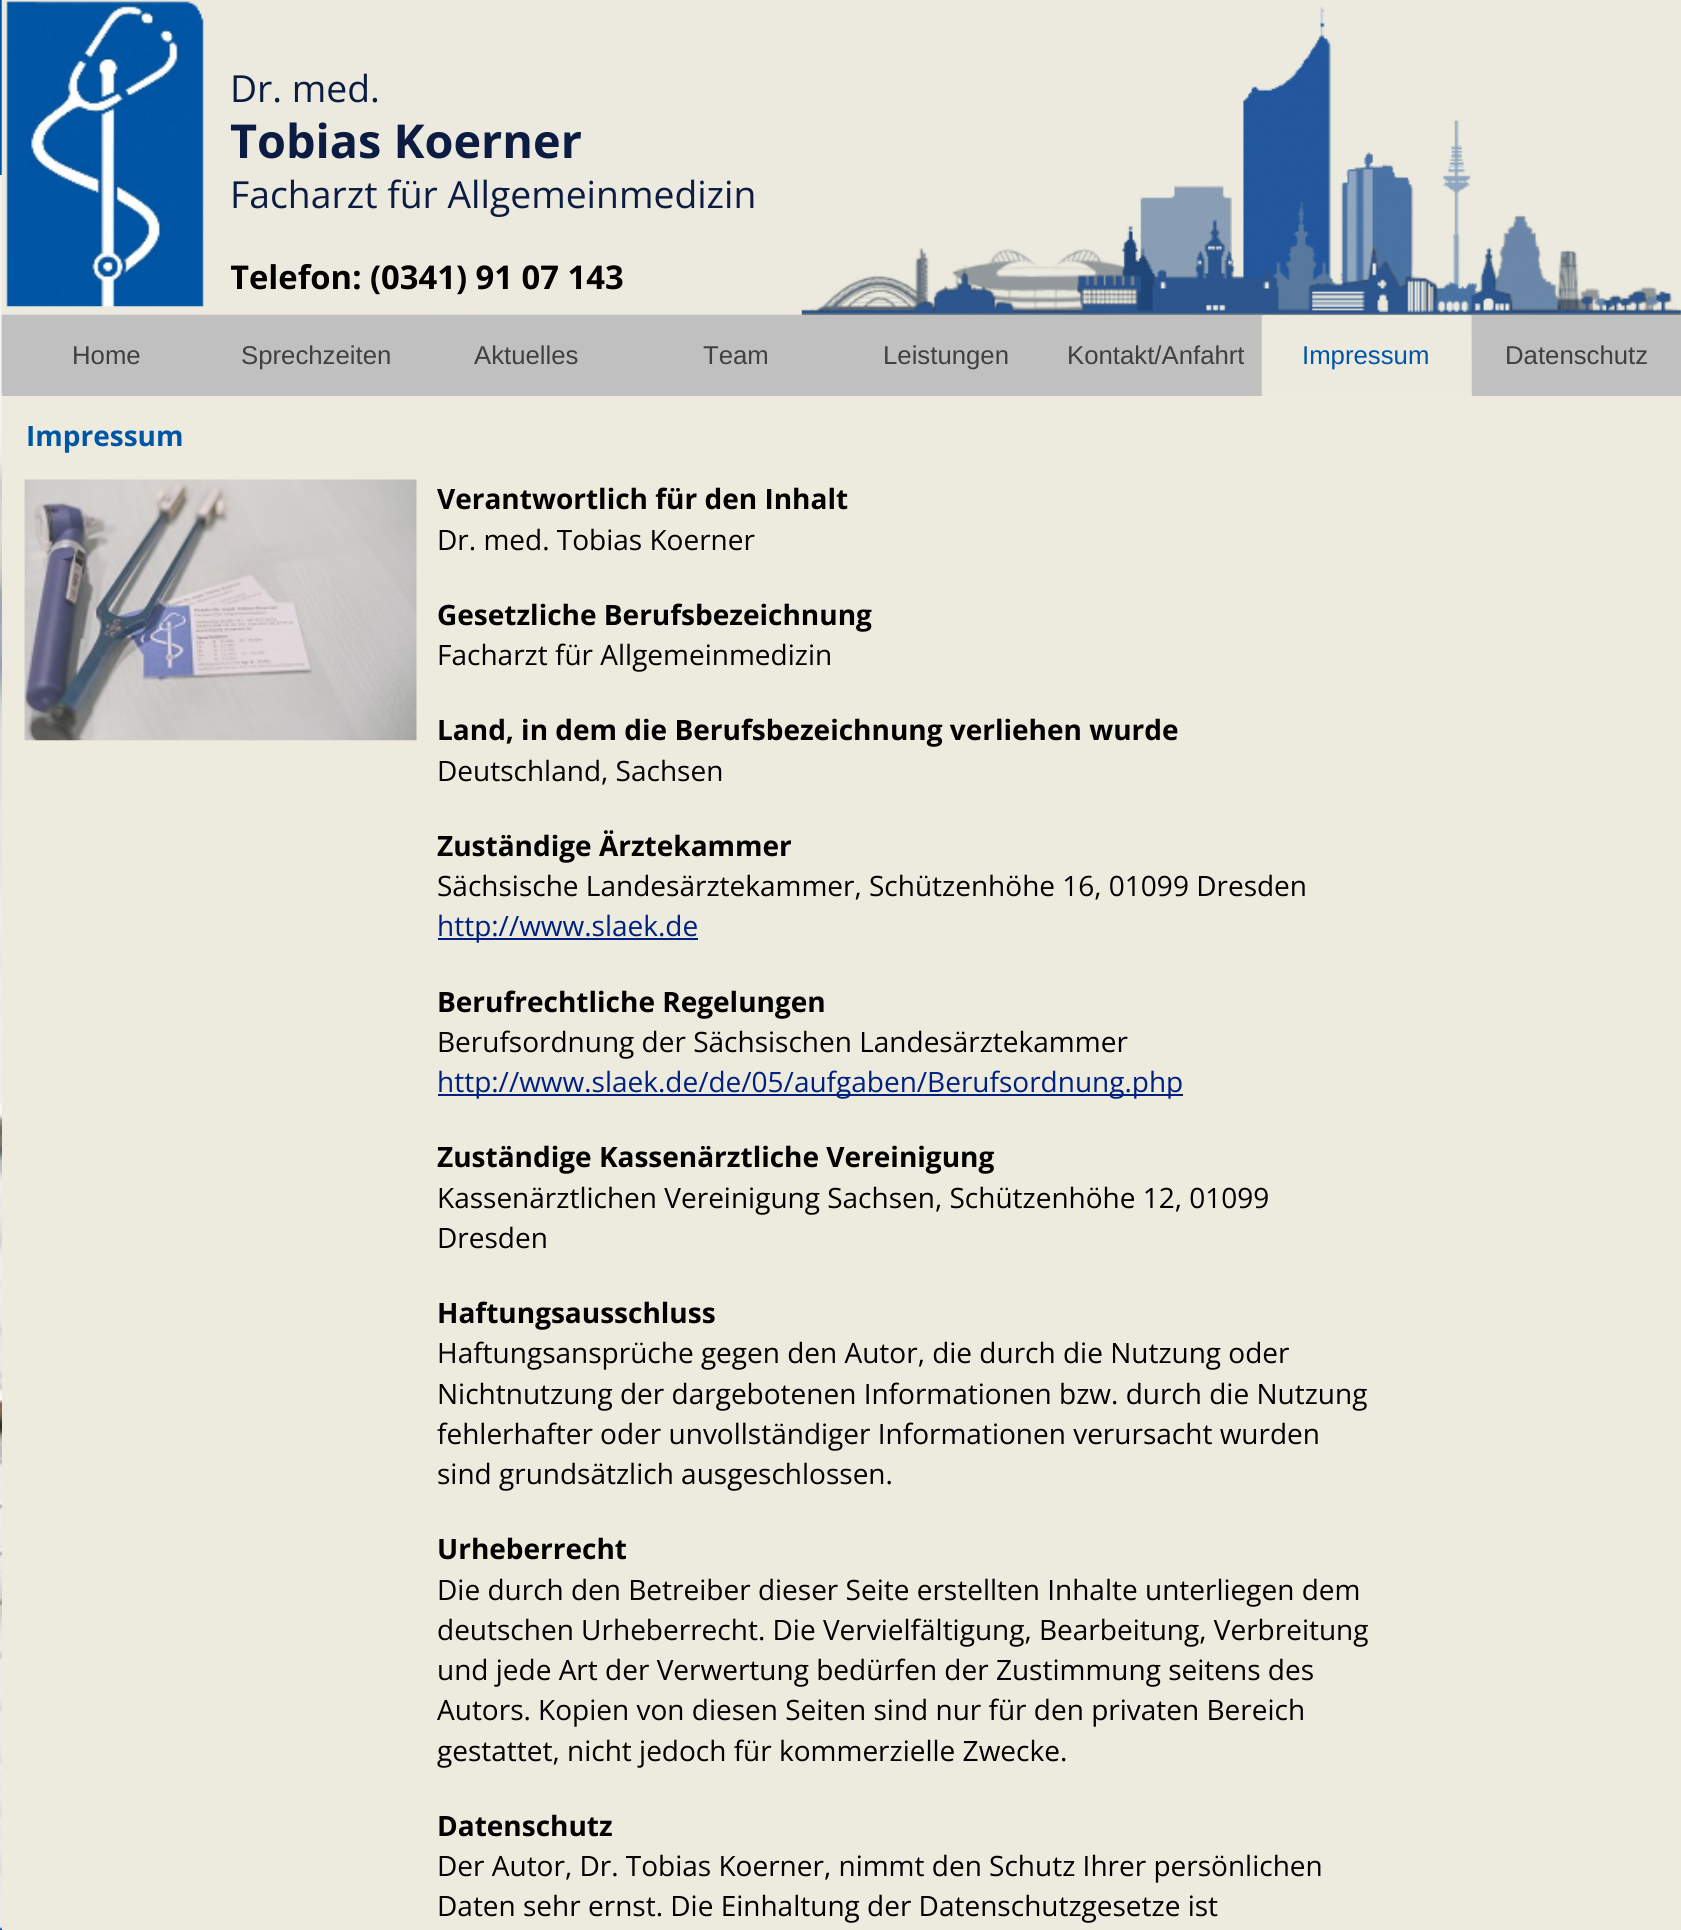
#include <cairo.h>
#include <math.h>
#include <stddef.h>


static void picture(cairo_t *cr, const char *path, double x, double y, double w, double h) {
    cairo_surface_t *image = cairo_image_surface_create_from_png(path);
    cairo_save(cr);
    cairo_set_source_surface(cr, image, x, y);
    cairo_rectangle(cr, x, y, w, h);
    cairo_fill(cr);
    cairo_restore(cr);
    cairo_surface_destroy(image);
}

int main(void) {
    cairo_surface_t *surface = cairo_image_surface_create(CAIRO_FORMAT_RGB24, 1681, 1930);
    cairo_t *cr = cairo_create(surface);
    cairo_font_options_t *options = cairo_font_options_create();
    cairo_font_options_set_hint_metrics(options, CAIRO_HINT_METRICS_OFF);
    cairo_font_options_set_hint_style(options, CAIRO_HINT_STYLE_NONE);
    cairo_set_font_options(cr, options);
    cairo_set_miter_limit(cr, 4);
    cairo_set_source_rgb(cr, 1, 1, 1);
    cairo_paint(cr);
    picture(cr, "img1.png", 0, 175, 1472, 1755);
    cairo_set_source_rgb(cr, 0, 0.333, 0.647);
    cairo_rectangle(cr, 0, 0, 2, 175);
    cairo_fill(cr);
    picture(cr, "img2.png", 1, 0, 1680, 394);
    picture(cr, "img3.png", 6, 1, 198, 306);
    cairo_select_font_face(cr, "Open Sans", CAIRO_FONT_SLANT_NORMAL, CAIRO_FONT_WEIGHT_NORMAL);
    cairo_set_font_size(cr, 37.3);
    cairo_set_source_rgb(cr, 0.047, 0.106, 0.259);
    cairo_move_to(cr, 230, 102);
    cairo_show_text(cr, "Dr. med.");
    cairo_select_font_face(cr, "Open Sans", CAIRO_FONT_SLANT_NORMAL, CAIRO_FONT_WEIGHT_BOLD);
    cairo_set_font_size(cr, 46.75);
    cairo_move_to(cr, 230, 158);
    cairo_show_text(cr, "Tobias Koerner");
    cairo_select_font_face(cr, "Open Sans", CAIRO_FONT_SLANT_NORMAL, CAIRO_FONT_WEIGHT_NORMAL);
    cairo_set_font_size(cr, 37.3);
    cairo_move_to(cr, 230, 208);
    cairo_show_text(cr, "Facharzt für Allgemeinmedizin");
    cairo_save(cr);
    cairo_rectangle(cr, 231, 63, 532, 240);
    cairo_clip(cr);
    cairo_select_font_face(cr, "Open Sans", CAIRO_FONT_SLANT_NORMAL, CAIRO_FONT_WEIGHT_BOLD);
    cairo_set_font_size(cr, 32.75);
    cairo_set_source_rgb(cr, 0, 0, 0);
    cairo_move_to(cr, 230, 289);
    cairo_show_text(cr, "Telefon: (0341) 91 07 143");
    cairo_restore(cr);
    picture(cr, "img4.png", 801, 6, 880, 310);
    cairo_set_source_rgb(cr, 0.925, 0.918, 0.871);
    cairo_rectangle(cr, 2, 394, 1679, 1536);
    cairo_fill(cr);
    cairo_set_source_rgb(cr, 0.753, 0.753, 0.753);
    cairo_rectangle(cr, 2, 315, 1260, 81);
    cairo_fill(cr);
    cairo_select_font_face(cr, "Liberation Sans", CAIRO_FONT_SLANT_NORMAL, CAIRO_FONT_WEIGHT_NORMAL);
    cairo_set_font_size(cr, 25.75);
    cairo_set_source_rgb(cr, 0.251, 0.251, 0.251);
    cairo_move_to(cr, 72, 364);
    cairo_show_text(cr, "Home");
    cairo_move_to(cr, 241, 364);
    cairo_show_text(cr, "Sprechzeiten");
    cairo_move_to(cr, 474, 364);
    cairo_show_text(cr, "Aktuelles");
    cairo_move_to(cr, 703, 364);
    cairo_show_text(cr, "Team");
    cairo_move_to(cr, 883, 364);
    cairo_show_text(cr, "Leistungen");
    cairo_move_to(cr, 1067, 364);
    cairo_show_text(cr, "Kontakt/Anfahrt");
    picture(cr, "img5.png", 1261, 315, 211, 81);
    cairo_set_source_rgb(cr, 0, 0.333, 0.647);
    cairo_move_to(cr, 1302, 364);
    cairo_show_text(cr, "Impressum");
    cairo_set_source_rgb(cr, 0.753, 0.753, 0.753);
    cairo_rectangle(cr, 1472, 315, 209, 81);
    cairo_fill(cr);
    cairo_set_source_rgb(cr, 0.251, 0.251, 0.251);
    cairo_move_to(cr, 1505, 364);
    cairo_show_text(cr, "Datenschutz");
    cairo_select_font_face(cr, "Open Sans", CAIRO_FONT_SLANT_NORMAL, CAIRO_FONT_WEIGHT_BOLD);
    cairo_set_font_size(cr, 28);
    cairo_set_source_rgb(cr, 0, 0.333, 0.647);
    cairo_move_to(cr, 26, 446);
    cairo_show_text(cr, "Impressum");
    picture(cr, "img6.png", 24, 479, 393, 262);
    cairo_set_source_rgb(cr, 0, 0, 0);
    cairo_move_to(cr, 437, 509);
    cairo_show_text(cr, "Verantwortlich für den Inhalt");
    cairo_select_font_face(cr, "Open Sans", CAIRO_FONT_SLANT_NORMAL, CAIRO_FONT_WEIGHT_NORMAL);
    cairo_move_to(cr, 437, 550);
    cairo_show_text(cr, "Dr. med. Tobias Koerner");
    cairo_select_font_face(cr, "Open Sans", CAIRO_FONT_SLANT_NORMAL, CAIRO_FONT_WEIGHT_BOLD);
    cairo_move_to(cr, 437, 625);
    cairo_show_text(cr, "Gesetzliche Berufsbezeichnung");
    cairo_select_font_face(cr, "Open Sans", CAIRO_FONT_SLANT_NORMAL, CAIRO_FONT_WEIGHT_NORMAL);
    cairo_move_to(cr, 437, 665);
    cairo_show_text(cr, "Facharzt für Allgemeinmedizin");
    cairo_select_font_face(cr, "Open Sans", CAIRO_FONT_SLANT_NORMAL, CAIRO_FONT_WEIGHT_BOLD);
    cairo_move_to(cr, 437, 740);
    cairo_show_text(cr, "Land, in dem die Berufsbezeichnung verliehen wurde");
    cairo_select_font_face(cr, "Open Sans", CAIRO_FONT_SLANT_NORMAL, CAIRO_FONT_WEIGHT_NORMAL);
    cairo_move_to(cr, 437, 781);
    cairo_show_text(cr, "Deutschland, Sachsen");
    cairo_select_font_face(cr, "Open Sans", CAIRO_FONT_SLANT_NORMAL, CAIRO_FONT_WEIGHT_BOLD);
    cairo_move_to(cr, 437, 856);
    cairo_show_text(cr, "Zuständige Ärztekammer");
    cairo_select_font_face(cr, "Open Sans", CAIRO_FONT_SLANT_NORMAL, CAIRO_FONT_WEIGHT_NORMAL);
    cairo_move_to(cr, 437, 896);
    cairo_show_text(cr, "Sächsische Landesärztekammer, Schützenhöhe 16, 01099 Dresden");
    cairo_set_source_rgb(cr, 0, 0.125, 0.502);
    cairo_rectangle(cr, 438, 938, 260, 2);
    cairo_fill(cr);
    cairo_move_to(cr, 437, 936);
    cairo_show_text(cr, "http://www.slaek.de");
    cairo_select_font_face(cr, "Open Sans", CAIRO_FONT_SLANT_NORMAL, CAIRO_FONT_WEIGHT_BOLD);
    cairo_set_source_rgb(cr, 0, 0, 0);
    cairo_move_to(cr, 437, 1012);
    cairo_show_text(cr, "Berufrechtliche Regelungen");
    cairo_select_font_face(cr, "Open Sans", CAIRO_FONT_SLANT_NORMAL, CAIRO_FONT_WEIGHT_NORMAL);
    cairo_move_to(cr, 437, 1052);
    cairo_show_text(cr, "Berufsordnung der Sächsischen Landesärztekammer");
    cairo_set_source_rgb(cr, 0, 0.125, 0.502);
    cairo_rectangle(cr, 438, 1094, 745, 2);
    cairo_fill(cr);
    cairo_move_to(cr, 437, 1092);
    cairo_show_text(cr, "http://www.slaek.de/de/05/aufgaben/Berufsordnung.php");
    cairo_select_font_face(cr, "Open Sans", CAIRO_FONT_SLANT_NORMAL, CAIRO_FONT_WEIGHT_BOLD);
    cairo_set_source_rgb(cr, 0, 0, 0);
    cairo_move_to(cr, 437, 1167);
    cairo_show_text(cr, "Zuständige Kassenärztliche Vereinigung");
    cairo_select_font_face(cr, "Open Sans", CAIRO_FONT_SLANT_NORMAL, CAIRO_FONT_WEIGHT_NORMAL);
    cairo_move_to(cr, 437, 1208);
    cairo_show_text(cr, "Kassenärztlichen Vereinigung Sachsen, Schützenhöhe 12, 01099");
    cairo_move_to(cr, 437, 1248);
    cairo_show_text(cr, "Dresden");
    cairo_select_font_face(cr, "Open Sans", CAIRO_FONT_SLANT_NORMAL, CAIRO_FONT_WEIGHT_BOLD);
    cairo_move_to(cr, 437, 1323);
    cairo_show_text(cr, "Haftungsausschluss");
    cairo_select_font_face(cr, "Open Sans", CAIRO_FONT_SLANT_NORMAL, CAIRO_FONT_WEIGHT_NORMAL);
    cairo_move_to(cr, 437, 1363);
    cairo_show_text(cr, "Haftungsansprüche gegen den Autor, die durch die Nutzung oder");
    cairo_move_to(cr, 437, 1404);
    cairo_show_text(cr, "Nichtnutzung der dargebotenen Informationen bzw. durch die Nutzung");
    cairo_move_to(cr, 437, 1444);
    cairo_show_text(cr, "fehlerhafter oder unvollständiger Informationen verursacht wurden");
    cairo_move_to(cr, 437, 1484);
    cairo_show_text(cr, "sind grundsätzlich ausgeschlossen.");
    cairo_select_font_face(cr, "Open Sans", CAIRO_FONT_SLANT_NORMAL, CAIRO_FONT_WEIGHT_BOLD);
    cairo_move_to(cr, 437, 1559);
    cairo_show_text(cr, "Urheberrecht");
    cairo_select_font_face(cr, "Open Sans", CAIRO_FONT_SLANT_NORMAL, CAIRO_FONT_WEIGHT_NORMAL);
    cairo_move_to(cr, 437, 1600);
    cairo_show_text(cr, "Die durch den Betreiber dieser Seite erstellten Inhalte unterliegen dem");
    cairo_move_to(cr, 437, 1640);
    cairo_show_text(cr, "deutschen Urheberrecht. Die Vervielfältigung, Bearbeitung, Verbreitung");
    cairo_move_to(cr, 437, 1680);
    cairo_show_text(cr, "und jede Art der Verwertung bedürfen der Zustimmung seitens des");
    cairo_move_to(cr, 437, 1720);
    cairo_show_text(cr, "Autors. Kopien von diesen Seiten sind nur für den privaten Bereich");
    cairo_move_to(cr, 437, 1761);
    cairo_show_text(cr, "gestattet, nicht jedoch für kommerzielle Zwecke.");
    cairo_select_font_face(cr, "Open Sans", CAIRO_FONT_SLANT_NORMAL, CAIRO_FONT_WEIGHT_BOLD);
    cairo_move_to(cr, 437, 1836);
    cairo_show_text(cr, "Datenschutz");
    cairo_select_font_face(cr, "Open Sans", CAIRO_FONT_SLANT_NORMAL, CAIRO_FONT_WEIGHT_NORMAL);
    cairo_move_to(cr, 437, 1876);
    cairo_show_text(cr, "Der Autor, Dr. Tobias Koerner, nimmt den Schutz Ihrer persönlichen");
    cairo_move_to(cr, 437, 1916);
    cairo_show_text(cr, "Daten sehr ernst. Die Einhaltung der Datenschutzgesetze ist");
    cairo_surface_write_to_png(surface, "page.png");
    cairo_font_options_destroy(options);
    cairo_destroy(cr);
    cairo_surface_destroy(surface);
    return 0;
}
